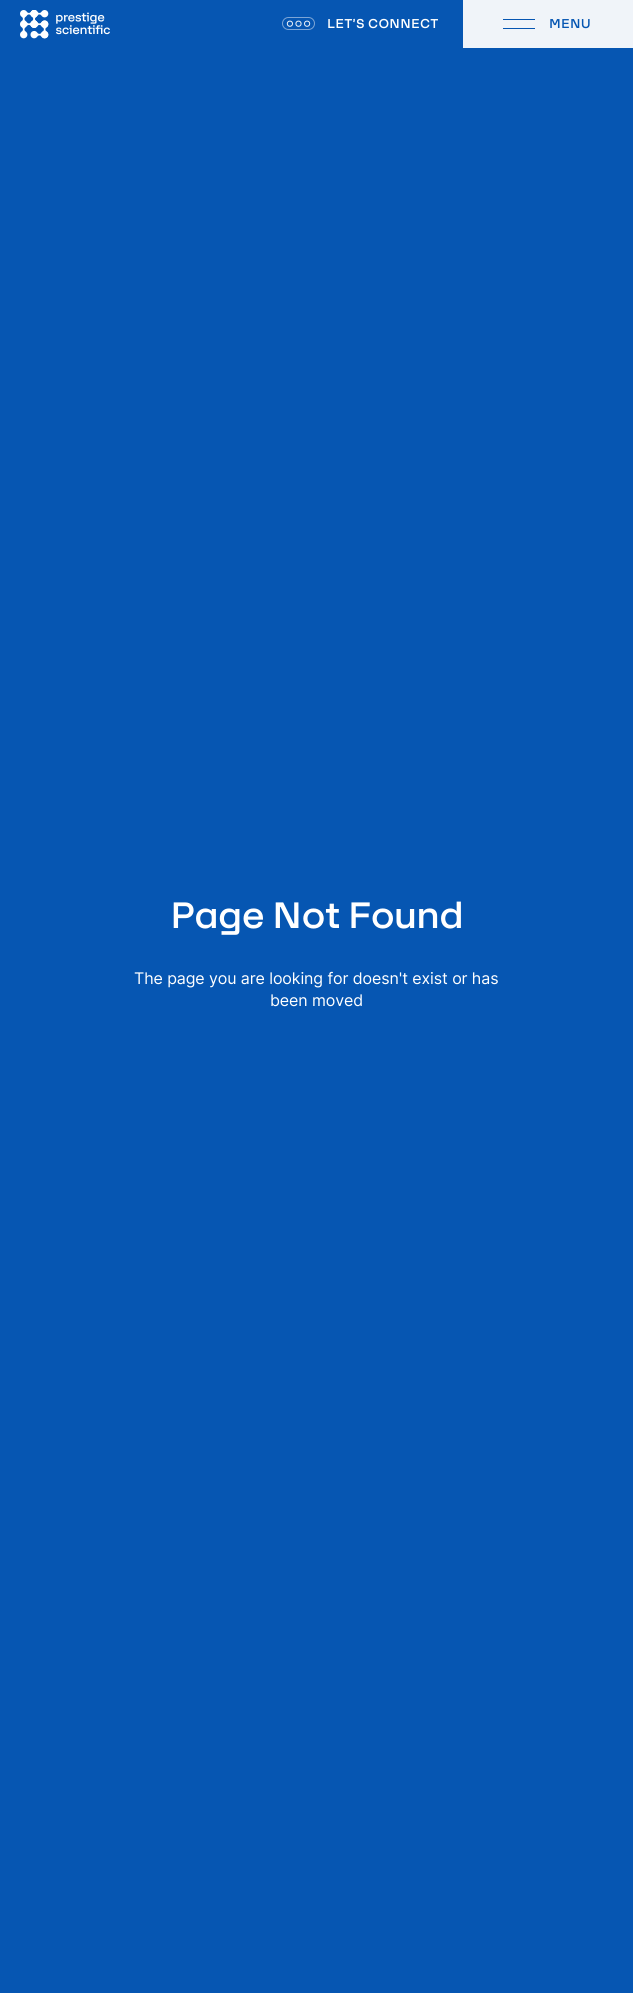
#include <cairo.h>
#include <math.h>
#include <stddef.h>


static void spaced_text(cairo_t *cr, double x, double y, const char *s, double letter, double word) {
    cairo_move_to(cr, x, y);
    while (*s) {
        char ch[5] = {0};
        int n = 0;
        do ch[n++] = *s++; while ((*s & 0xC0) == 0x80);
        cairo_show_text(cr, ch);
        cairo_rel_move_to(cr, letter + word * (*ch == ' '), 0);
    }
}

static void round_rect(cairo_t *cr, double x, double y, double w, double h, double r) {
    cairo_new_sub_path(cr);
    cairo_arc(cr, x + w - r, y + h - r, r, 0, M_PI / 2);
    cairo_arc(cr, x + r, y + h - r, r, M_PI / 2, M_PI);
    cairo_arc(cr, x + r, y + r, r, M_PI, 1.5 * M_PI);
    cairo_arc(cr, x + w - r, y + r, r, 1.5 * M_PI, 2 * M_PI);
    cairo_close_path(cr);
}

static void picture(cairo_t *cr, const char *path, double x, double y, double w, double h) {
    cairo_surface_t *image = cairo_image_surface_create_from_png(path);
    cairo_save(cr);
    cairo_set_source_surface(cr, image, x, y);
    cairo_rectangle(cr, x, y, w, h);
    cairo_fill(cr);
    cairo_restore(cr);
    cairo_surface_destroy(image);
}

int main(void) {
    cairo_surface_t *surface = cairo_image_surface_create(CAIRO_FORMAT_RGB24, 633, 1993);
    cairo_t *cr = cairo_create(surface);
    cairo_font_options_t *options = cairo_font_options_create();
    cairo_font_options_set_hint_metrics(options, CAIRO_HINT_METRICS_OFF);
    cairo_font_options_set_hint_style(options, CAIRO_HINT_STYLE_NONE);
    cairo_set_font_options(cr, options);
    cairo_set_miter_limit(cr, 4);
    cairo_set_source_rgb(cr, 0.027, 0.337, 0.698);
    cairo_paint(cr);
    picture(cr, "img1.png", 20, 10, 90, 29);
    round_rect(cr, 282.5, 17.5, 32, 12, 6);
    cairo_set_source_rgb(cr, 0.486, 0.647, 0.839);
    cairo_set_line_width(cr, 1);
    cairo_stroke(cr);
    cairo_arc(cr, 289.9, 23.7, 2.6, 0, 2 * M_PI);
    cairo_set_source_rgb(cr, 0.941, 0.957, 0.976);
    cairo_stroke(cr);
    cairo_arc(cr, 298.5, 23.7, 2.6, 0, 2 * M_PI);
    cairo_stroke(cr);
    cairo_arc(cr, 307.1, 23.7, 2.6, 0, 2 * M_PI);
    cairo_stroke(cr);
    cairo_select_font_face(cr, "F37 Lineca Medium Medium", CAIRO_FONT_SLANT_NORMAL, CAIRO_FONT_WEIGHT_NORMAL);
    cairo_set_font_size(cr, 14);
    cairo_set_source_rgb(cr, 1, 1, 1);
    spaced_text(cr, 327, 28, "LET’S CONNECT", 0.25, 0);
    cairo_set_source_rgb(cr, 0.941, 0.957, 0.976);
    cairo_rectangle(cr, 463, 0, 170, 48);
    cairo_fill(cr);
    cairo_set_source_rgb(cr, 0.027, 0.337, 0.698);
    cairo_rectangle(cr, 503, 19, 32, 1);
    cairo_fill(cr);
    cairo_rectangle(cr, 503, 28, 32, 1);
    cairo_fill(cr);
    spaced_text(cr, 549, 28, "MENU", 0.25, 0);
    cairo_set_font_size(cr, 40);
    cairo_set_source_rgb(cr, 1, 1, 1);
    spaced_text(cr, 170, 928, "Page Not Found", -0.75, 0);
    cairo_select_font_face(cr, "Inter", CAIRO_FONT_SLANT_NORMAL, CAIRO_FONT_WEIGHT_NORMAL);
    cairo_set_font_size(cr, 16);
    spaced_text(cr, 134, 984, "The page you are looking for doesn't exist or has", -0.1, 0);
    spaced_text(cr, 270, 1006, "been moved", -0.1, 0);
    cairo_surface_write_to_png(surface, "page.png");
    cairo_font_options_destroy(options);
    cairo_destroy(cr);
    cairo_surface_destroy(surface);
    return 0;
}
